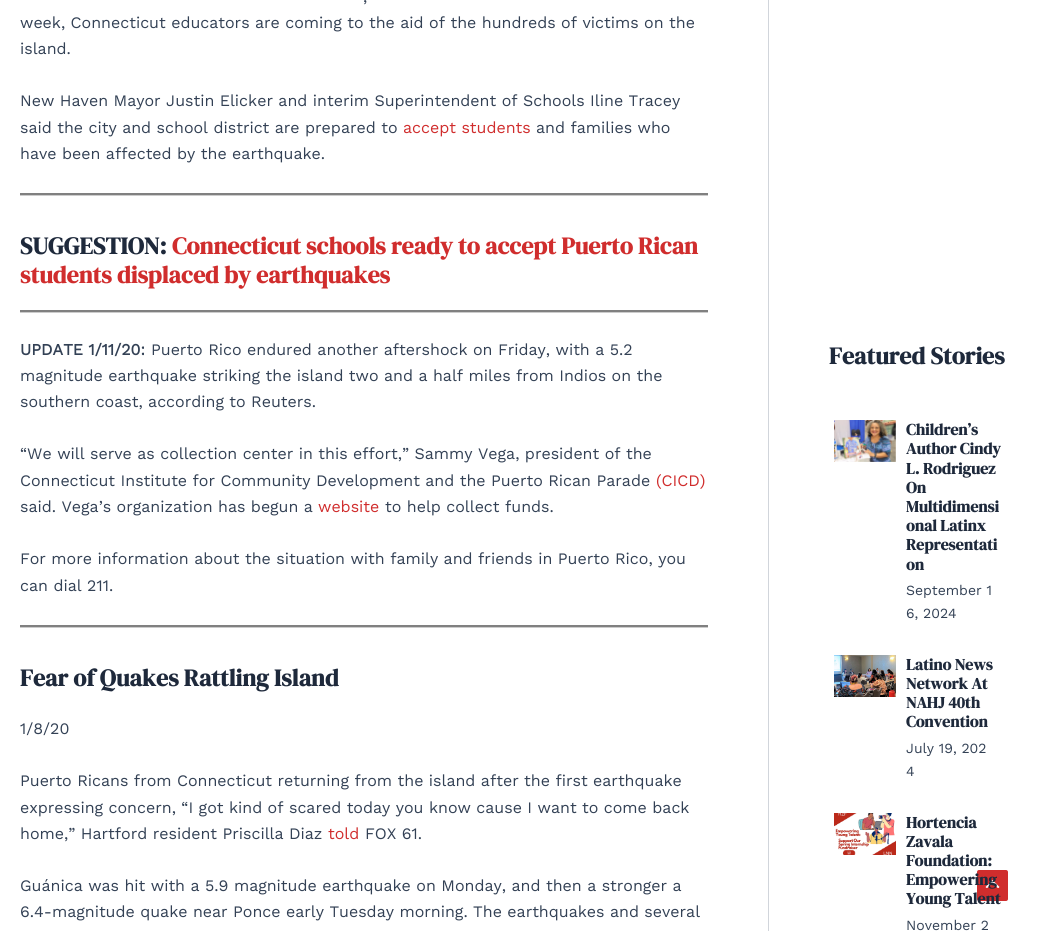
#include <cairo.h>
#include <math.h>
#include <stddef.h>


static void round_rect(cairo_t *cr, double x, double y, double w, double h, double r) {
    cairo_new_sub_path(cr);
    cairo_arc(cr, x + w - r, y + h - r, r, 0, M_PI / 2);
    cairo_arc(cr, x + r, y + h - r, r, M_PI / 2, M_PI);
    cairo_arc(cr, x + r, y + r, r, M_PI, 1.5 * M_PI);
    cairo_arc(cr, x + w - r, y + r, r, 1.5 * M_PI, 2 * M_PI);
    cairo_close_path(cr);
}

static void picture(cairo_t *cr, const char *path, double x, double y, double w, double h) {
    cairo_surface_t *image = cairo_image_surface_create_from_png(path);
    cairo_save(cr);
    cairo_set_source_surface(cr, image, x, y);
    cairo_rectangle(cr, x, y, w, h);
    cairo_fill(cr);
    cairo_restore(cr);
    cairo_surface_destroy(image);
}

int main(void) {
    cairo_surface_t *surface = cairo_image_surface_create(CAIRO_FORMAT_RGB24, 1038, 931);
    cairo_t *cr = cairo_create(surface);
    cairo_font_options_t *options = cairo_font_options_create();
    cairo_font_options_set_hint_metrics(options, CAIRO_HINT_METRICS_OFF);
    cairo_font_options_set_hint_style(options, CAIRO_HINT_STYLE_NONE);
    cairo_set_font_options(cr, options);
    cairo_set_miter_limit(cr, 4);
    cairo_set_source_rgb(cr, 1, 1, 1);
    cairo_paint(cr);
    cairo_set_source_rgb(cr, 0.82, 0.835, 0.859);
    cairo_rectangle(cr, 768, 0, 1, 931);
    cairo_fill(cr);
    cairo_select_font_face(cr, "Work Sans", CAIRO_FONT_SLANT_NORMAL, CAIRO_FONT_WEIGHT_NORMAL);
    cairo_set_font_size(cr, 16);
    cairo_set_source_rgb(cr, 0.2, 0.255, 0.333);
    cairo_move_to(cr, 363, 2);
    cairo_show_text(cr, ",");
    cairo_move_to(cr, 20, 28);
    cairo_show_text(cr, "week, Connecticut educators are coming to the aid of the hundreds of victims on the");
    cairo_move_to(cr, 20, 54);
    cairo_show_text(cr, "island.");
    cairo_move_to(cr, 20, 106);
    cairo_show_text(cr, "New Haven Mayor Justin Elicker and interim Superintendent of Schools Iline Tracey");
    cairo_move_to(cr, 20, 133);
    cairo_show_text(cr, "said the city and school district are prepared to");
    cairo_set_source_rgb(cr, 0.816, 0.176, 0.176);
    cairo_move_to(cr, 403, 133);
    cairo_show_text(cr, "accept students");
    cairo_set_source_rgb(cr, 0.2, 0.255, 0.333);
    cairo_move_to(cr, 536, 133);
    cairo_show_text(cr, "and families who");
    cairo_move_to(cr, 20, 159);
    cairo_show_text(cr, "have been affected by the earthquake.");
    cairo_set_source_rgb(cr, 0.8, 0.8, 0.8);
    cairo_rectangle(cr, 20, 195, 688, 1);
    cairo_fill(cr);
    cairo_set_source_rgb(cr, 0.502, 0.502, 0.502);
    cairo_rectangle(cr, 20, 193, 688, 2);
    cairo_fill(cr);
    cairo_select_font_face(cr, "DM Serif Display", CAIRO_FONT_SLANT_NORMAL, CAIRO_FONT_WEIGHT_BOLD);
    cairo_set_font_size(cr, 24);
    cairo_set_source_rgb(cr, 0.118, 0.161, 0.231);
    cairo_move_to(cr, 20, 254);
    cairo_show_text(cr, "SUGGESTION:");
    cairo_set_source_rgb(cr, 0.816, 0.176, 0.176);
    cairo_move_to(cr, 172, 254);
    cairo_show_text(cr, "Connecticut schools ready to accept Puerto Rican");
    cairo_move_to(cr, 20, 283);
    cairo_show_text(cr, "students displaced by earthquakes");
    cairo_set_source_rgb(cr, 0.8, 0.8, 0.8);
    cairo_rectangle(cr, 20, 312, 688, 1);
    cairo_fill(cr);
    cairo_set_source_rgb(cr, 0.502, 0.502, 0.502);
    cairo_rectangle(cr, 20, 310, 688, 2);
    cairo_fill(cr);
    cairo_select_font_face(cr, "Work Sans", CAIRO_FONT_SLANT_NORMAL, CAIRO_FONT_WEIGHT_BOLD);
    cairo_set_font_size(cr, 16);
    cairo_set_source_rgb(cr, 0.2, 0.255, 0.333);
    cairo_move_to(cr, 20, 355);
    cairo_show_text(cr, "UPDATE 1/11/20:");
    cairo_select_font_face(cr, "Work Sans", CAIRO_FONT_SLANT_NORMAL, CAIRO_FONT_WEIGHT_NORMAL);
    cairo_move_to(cr, 151, 355);
    cairo_show_text(cr, "Puerto Rico endured another aftershock on Friday, with a 5.2");
    cairo_move_to(cr, 20, 381);
    cairo_show_text(cr, "magnitude earthquake striking the island two and a half miles from Indios on the");
    cairo_move_to(cr, 20, 407);
    cairo_show_text(cr, "southern coast, according to Reuters.");
    cairo_move_to(cr, 20, 459);
    cairo_show_text(cr, "“We will serve as collection center in this effort,” Sammy Vega, president of the");
    cairo_move_to(cr, 20, 486);
    cairo_show_text(cr, "Connecticut Institute for Community Development and the Puerto Rican Parade");
    cairo_set_source_rgb(cr, 0.816, 0.176, 0.176);
    cairo_move_to(cr, 656, 486);
    cairo_show_text(cr, "(CICD)");
    cairo_set_source_rgb(cr, 0.2, 0.255, 0.333);
    cairo_move_to(cr, 20, 512);
    cairo_show_text(cr, "said. Vega’s organization has begun a");
    cairo_set_source_rgb(cr, 0.816, 0.176, 0.176);
    cairo_move_to(cr, 318, 512);
    cairo_show_text(cr, "website");
    cairo_set_source_rgb(cr, 0.2, 0.255, 0.333);
    cairo_move_to(cr, 385, 512);
    cairo_show_text(cr, "to help collect funds.");
    cairo_move_to(cr, 20, 564);
    cairo_show_text(cr, "For more information about the situation with family and friends in Puerto Rico, you");
    cairo_move_to(cr, 20, 591);
    cairo_show_text(cr, "can dial 211.");
    cairo_set_source_rgb(cr, 0.8, 0.8, 0.8);
    cairo_rectangle(cr, 20, 627, 688, 1);
    cairo_fill(cr);
    cairo_set_source_rgb(cr, 0.502, 0.502, 0.502);
    cairo_rectangle(cr, 20, 625, 688, 2);
    cairo_fill(cr);
    cairo_select_font_face(cr, "DM Serif Display", CAIRO_FONT_SLANT_NORMAL, CAIRO_FONT_WEIGHT_BOLD);
    cairo_set_font_size(cr, 24);
    cairo_set_source_rgb(cr, 0.118, 0.161, 0.231);
    cairo_move_to(cr, 20, 686);
    cairo_show_text(cr, "Fear of Quakes Rattling Island");
    cairo_select_font_face(cr, "Work Sans", CAIRO_FONT_SLANT_NORMAL, CAIRO_FONT_WEIGHT_NORMAL);
    cairo_set_font_size(cr, 16);
    cairo_set_source_rgb(cr, 0.2, 0.255, 0.333);
    cairo_move_to(cr, 20, 734);
    cairo_show_text(cr, "1/8/20");
    cairo_move_to(cr, 20, 786);
    cairo_show_text(cr, "Puerto Ricans from Connecticut returning from the island after the first earthquake");
    cairo_move_to(cr, 20, 813);
    cairo_show_text(cr, "expressing concern, “I got kind of scared today you know cause I want to come back");
    cairo_move_to(cr, 20, 839);
    cairo_show_text(cr, "home,” Hartford resident Priscilla Diaz");
    cairo_set_source_rgb(cr, 0.816, 0.176, 0.176);
    cairo_move_to(cr, 328, 839);
    cairo_show_text(cr, "told");
    cairo_set_source_rgb(cr, 0.2, 0.255, 0.333);
    cairo_move_to(cr, 365, 839);
    cairo_show_text(cr, "FOX 61.");
    cairo_move_to(cr, 20, 891);
    cairo_show_text(cr, "Guánica was hit with a 5.9 magnitude earthquake on Monday, and then a stronger a");
    cairo_move_to(cr, 20, 917);
    cairo_show_text(cr, "6.4-magnitude quake near Ponce early Tuesday morning. The earthquakes and several");
    cairo_select_font_face(cr, "DM Serif Display", CAIRO_FONT_SLANT_NORMAL, CAIRO_FONT_WEIGHT_BOLD);
    cairo_set_font_size(cr, 24);
    cairo_set_source_rgb(cr, 0.118, 0.161, 0.231);
    cairo_move_to(cr, 829, 364);
    cairo_show_text(cr, "Featured Stories");
    picture(cr, "img1.png", 834, 420, 62, 42);
    cairo_set_font_size(cr, 16);
    cairo_move_to(cr, 906, 435);
    cairo_show_text(cr, "Children’s");
    cairo_move_to(cr, 906, 454);
    cairo_show_text(cr, "Author Cindy");
    cairo_move_to(cr, 906, 474);
    cairo_show_text(cr, "L. Rodriguez");
    cairo_move_to(cr, 906, 493);
    cairo_show_text(cr, "On");
    cairo_move_to(cr, 906, 512);
    cairo_show_text(cr, "Multidimensi");
    cairo_move_to(cr, 906, 531);
    cairo_show_text(cr, "onal Latinx");
    cairo_move_to(cr, 906, 550);
    cairo_show_text(cr, "Representati");
    cairo_move_to(cr, 906, 570);
    cairo_show_text(cr, "on");
    cairo_select_font_face(cr, "Work Sans", CAIRO_FONT_SLANT_NORMAL, CAIRO_FONT_WEIGHT_NORMAL);
    cairo_set_font_size(cr, 14);
    cairo_set_source_rgb(cr, 0.2, 0.255, 0.333);
    cairo_move_to(cr, 906, 595);
    cairo_show_text(cr, "September 1");
    cairo_move_to(cr, 906, 618);
    cairo_show_text(cr, "6, 2024");
    picture(cr, "img2.png", 834, 655, 62, 42);
    cairo_select_font_face(cr, "DM Serif Display", CAIRO_FONT_SLANT_NORMAL, CAIRO_FONT_WEIGHT_BOLD);
    cairo_set_font_size(cr, 16);
    cairo_set_source_rgb(cr, 0.118, 0.161, 0.231);
    cairo_move_to(cr, 906, 670);
    cairo_show_text(cr, "Latino News");
    cairo_move_to(cr, 906, 689);
    cairo_show_text(cr, "Network At");
    cairo_move_to(cr, 906, 708);
    cairo_show_text(cr, "NAHJ 40th");
    cairo_move_to(cr, 906, 727);
    cairo_show_text(cr, "Convention");
    cairo_select_font_face(cr, "Work Sans", CAIRO_FONT_SLANT_NORMAL, CAIRO_FONT_WEIGHT_NORMAL);
    cairo_set_font_size(cr, 14);
    cairo_set_source_rgb(cr, 0.2, 0.255, 0.333);
    cairo_move_to(cr, 906, 753);
    cairo_show_text(cr, "July 19, 202");
    cairo_move_to(cr, 906, 776);
    cairo_show_text(cr, "4");
    picture(cr, "img3.png", 834, 813, 62, 42);
    cairo_select_font_face(cr, "DM Serif Display", CAIRO_FONT_SLANT_NORMAL, CAIRO_FONT_WEIGHT_BOLD);
    cairo_set_font_size(cr, 16);
    cairo_set_source_rgb(cr, 0.118, 0.161, 0.231);
    cairo_move_to(cr, 906, 828);
    cairo_show_text(cr, "Hortencia");
    cairo_move_to(cr, 906, 847);
    cairo_show_text(cr, "Zavala");
    cairo_move_to(cr, 906, 866);
    cairo_show_text(cr, "Foundation:");
    cairo_set_source_rgb(cr, 0.816, 0.176, 0.176);
    round_rect(cr, 977, 870, 31, 31, 2);
    cairo_fill(cr);
    picture(cr, "img4.png", 985, 880, 15, 8);
    cairo_set_source_rgb(cr, 0.118, 0.161, 0.231);
    cairo_move_to(cr, 906, 885);
    cairo_show_text(cr, "Empowering");
    cairo_move_to(cr, 906, 904);
    cairo_show_text(cr, "Young Talent");
    cairo_select_font_face(cr, "Work Sans", CAIRO_FONT_SLANT_NORMAL, CAIRO_FONT_WEIGHT_NORMAL);
    cairo_set_font_size(cr, 14);
    cairo_set_source_rgb(cr, 0.2, 0.255, 0.333);
    cairo_move_to(cr, 906, 930);
    cairo_show_text(cr, "November 2");
    cairo_surface_write_to_png(surface, "page.png");
    cairo_font_options_destroy(options);
    cairo_destroy(cr);
    cairo_surface_destroy(surface);
    return 0;
}
